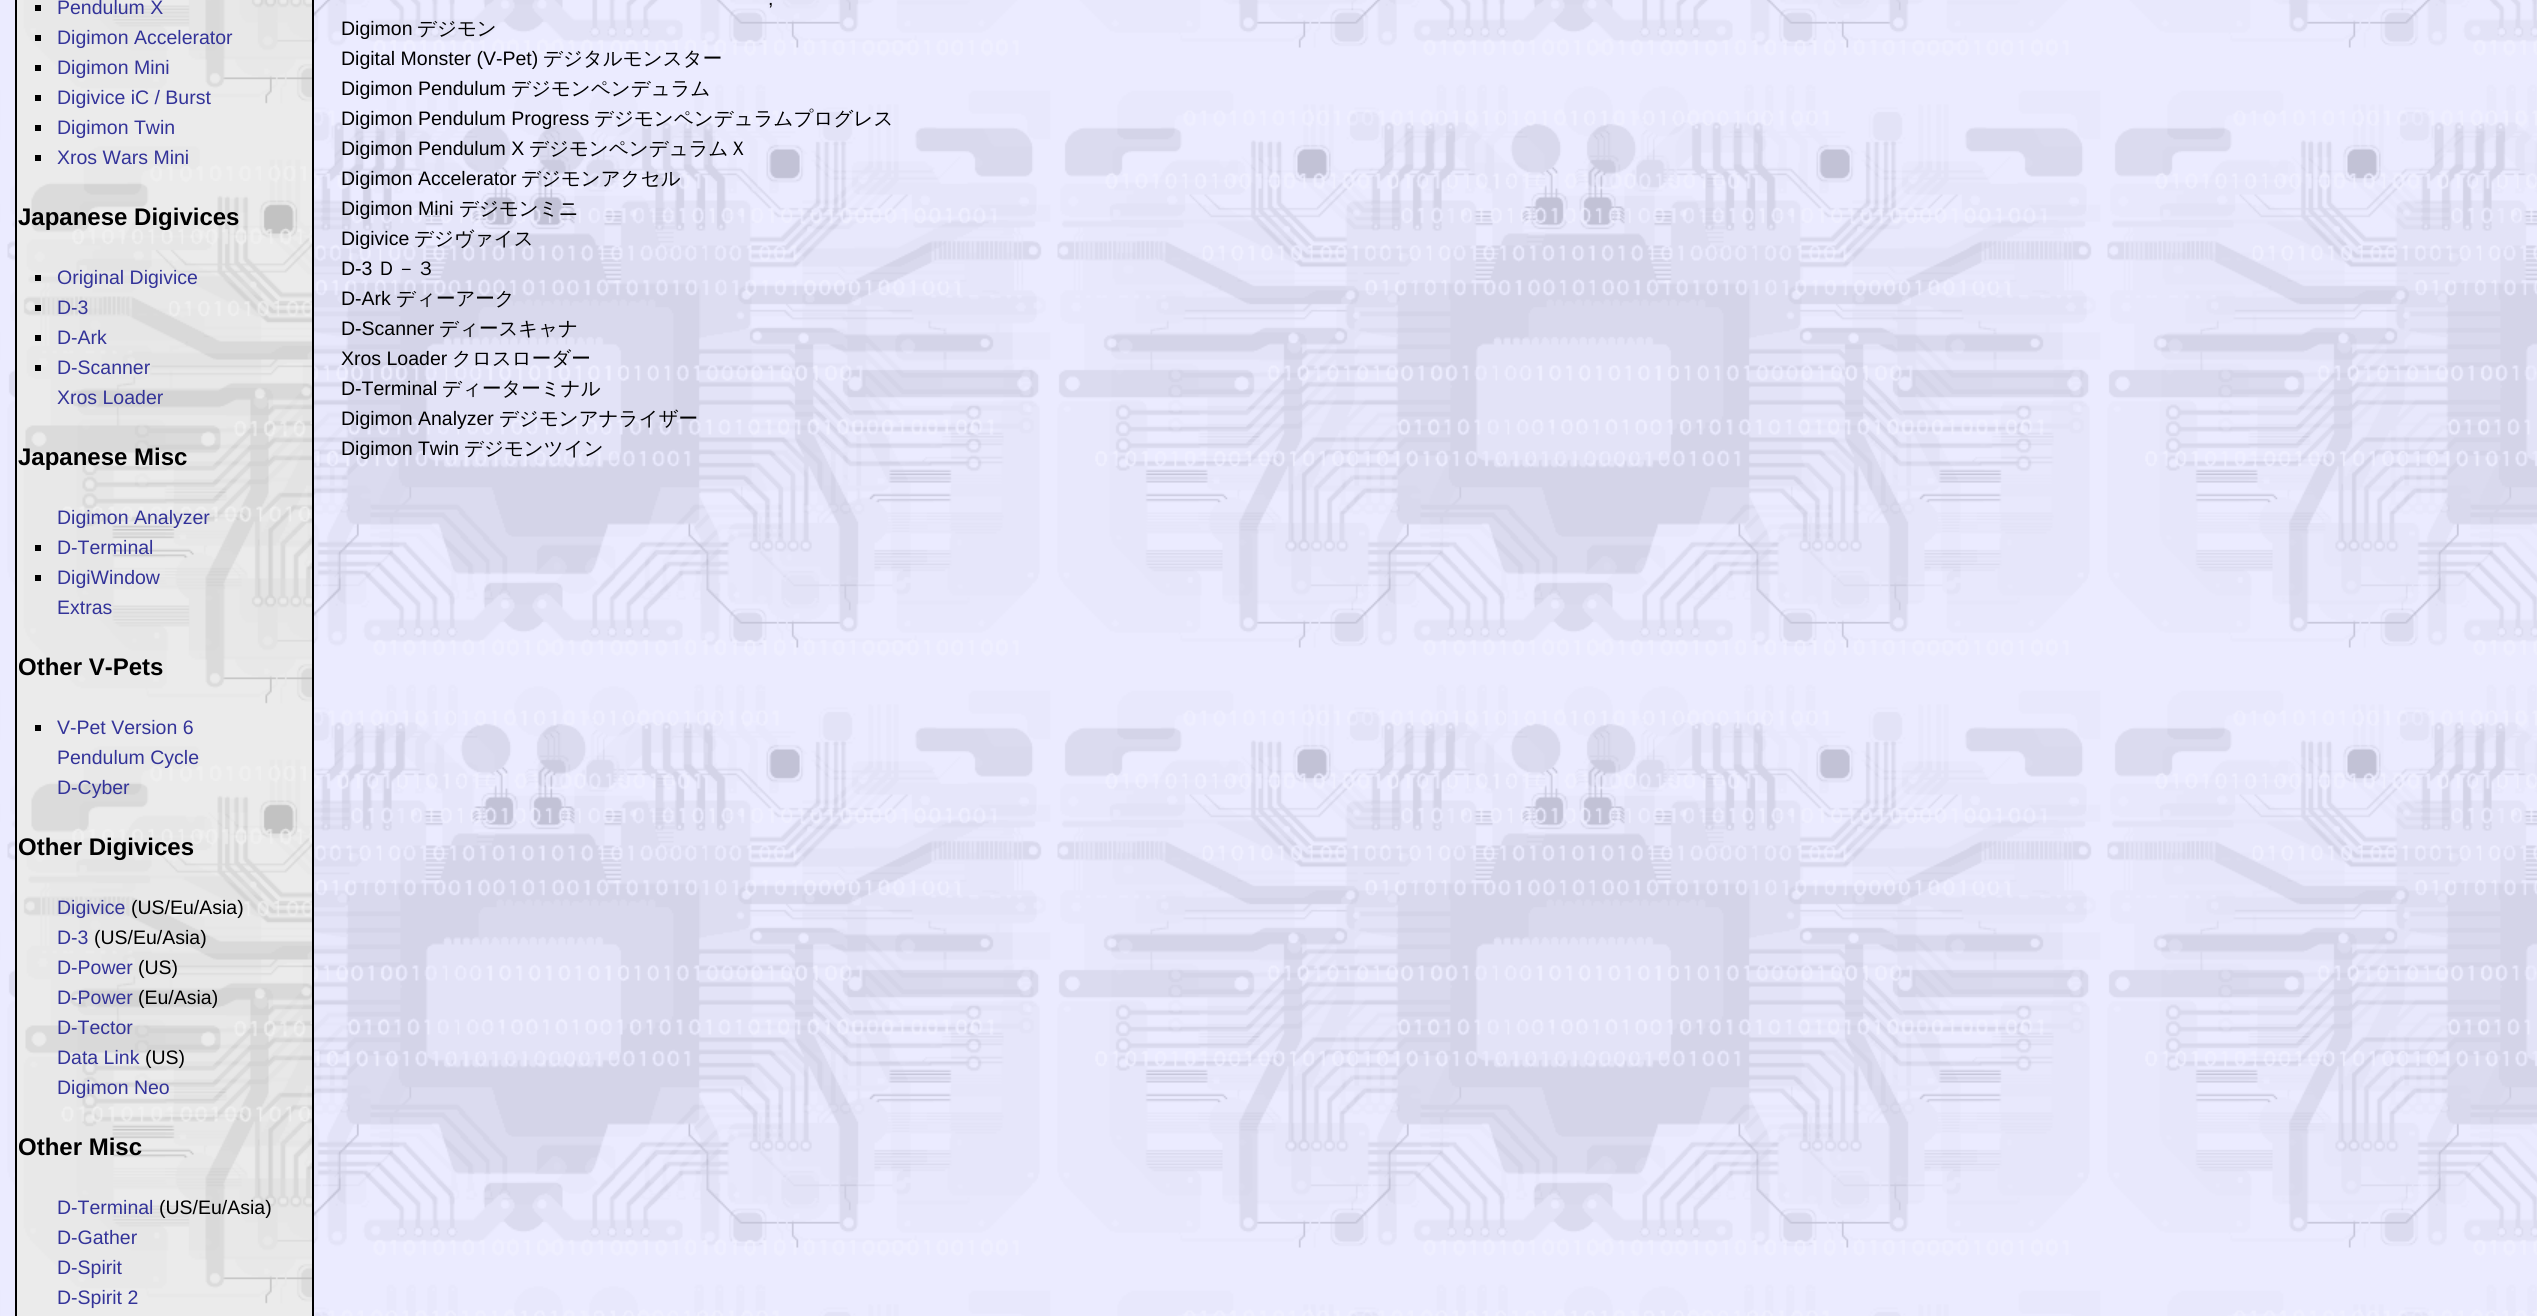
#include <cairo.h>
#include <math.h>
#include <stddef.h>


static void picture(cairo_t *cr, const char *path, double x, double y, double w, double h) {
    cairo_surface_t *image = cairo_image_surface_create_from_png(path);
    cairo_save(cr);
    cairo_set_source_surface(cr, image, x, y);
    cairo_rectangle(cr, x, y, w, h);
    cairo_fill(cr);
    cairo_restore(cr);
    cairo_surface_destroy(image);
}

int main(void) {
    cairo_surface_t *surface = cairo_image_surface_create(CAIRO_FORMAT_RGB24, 2537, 1316);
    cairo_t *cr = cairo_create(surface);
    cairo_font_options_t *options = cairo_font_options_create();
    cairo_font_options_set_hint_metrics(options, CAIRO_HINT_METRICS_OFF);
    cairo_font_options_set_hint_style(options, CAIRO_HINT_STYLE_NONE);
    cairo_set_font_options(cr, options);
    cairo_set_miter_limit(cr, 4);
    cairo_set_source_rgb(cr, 1, 1, 1);
    cairo_paint(cr);
    picture(cr, "img1.png", 0, 0, 2537, 1316);
    picture(cr, "img2.png", 17, 0, 295, 1316);
    cairo_rectangle(cr, 16, -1, 297, 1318);
    cairo_set_source_rgb(cr, 0, 0, 0);
    cairo_stroke(cr);
    cairo_rectangle(cr, 35, 5, 6, 6);
    cairo_fill(cr);
    cairo_select_font_face(cr, "Liberation Sans", CAIRO_FONT_SLANT_NORMAL, CAIRO_FONT_WEIGHT_NORMAL);
    cairo_set_font_size(cr, 19.5);
    cairo_set_source_rgb(cr, 0.2, 0.2, 0.6);
    cairo_move_to(cr, 57, 14);
    cairo_show_text(cr, "Pendulum X");
    cairo_set_source_rgb(cr, 0, 0, 0);
    cairo_rectangle(cr, 35, 35, 6, 6);
    cairo_fill(cr);
    cairo_set_source_rgb(cr, 0.2, 0.2, 0.6);
    cairo_move_to(cr, 57, 44);
    cairo_show_text(cr, "Digimon Accelerator");
    cairo_set_source_rgb(cr, 0, 0, 0);
    cairo_rectangle(cr, 35, 65, 6, 6);
    cairo_fill(cr);
    cairo_set_source_rgb(cr, 0.2, 0.2, 0.6);
    cairo_move_to(cr, 57, 74);
    cairo_show_text(cr, "Digimon Mini");
    cairo_set_source_rgb(cr, 0, 0, 0);
    cairo_rectangle(cr, 35, 95, 6, 6);
    cairo_fill(cr);
    cairo_set_source_rgb(cr, 0.2, 0.2, 0.6);
    cairo_move_to(cr, 57, 104);
    cairo_show_text(cr, "Digivice iC / Burst");
    cairo_set_source_rgb(cr, 0, 0, 0);
    cairo_rectangle(cr, 35, 125, 6, 6);
    cairo_fill(cr);
    cairo_set_source_rgb(cr, 0.2, 0.2, 0.6);
    cairo_move_to(cr, 57, 134);
    cairo_show_text(cr, "Digimon Twin");
    cairo_set_source_rgb(cr, 0, 0, 0);
    cairo_rectangle(cr, 35, 155, 6, 6);
    cairo_fill(cr);
    cairo_set_source_rgb(cr, 0.2, 0.2, 0.6);
    cairo_move_to(cr, 57, 164);
    cairo_show_text(cr, "Xros Wars Mini");
    cairo_select_font_face(cr, "Liberation Sans", CAIRO_FONT_SLANT_NORMAL, CAIRO_FONT_WEIGHT_BOLD);
    cairo_set_font_size(cr, 24);
    cairo_set_source_rgb(cr, 0, 0, 0);
    cairo_move_to(cr, 18, 225);
    cairo_show_text(cr, "Japanese Digivices");
    cairo_rectangle(cr, 35, 275, 6, 6);
    cairo_fill(cr);
    cairo_select_font_face(cr, "Liberation Sans", CAIRO_FONT_SLANT_NORMAL, CAIRO_FONT_WEIGHT_NORMAL);
    cairo_set_font_size(cr, 19.5);
    cairo_set_source_rgb(cr, 0.2, 0.2, 0.6);
    cairo_move_to(cr, 57, 284);
    cairo_show_text(cr, "Original Digivice");
    cairo_set_source_rgb(cr, 0, 0, 0);
    cairo_rectangle(cr, 35, 305, 6, 6);
    cairo_fill(cr);
    cairo_set_source_rgb(cr, 0.2, 0.2, 0.6);
    cairo_move_to(cr, 57, 314);
    cairo_show_text(cr, "D-3");
    cairo_set_source_rgb(cr, 0, 0, 0);
    cairo_rectangle(cr, 35, 335, 6, 6);
    cairo_fill(cr);
    cairo_set_source_rgb(cr, 0.2, 0.2, 0.6);
    cairo_move_to(cr, 57, 344);
    cairo_show_text(cr, "D-Ark");
    cairo_set_source_rgb(cr, 0, 0, 0);
    cairo_rectangle(cr, 35, 365, 6, 6);
    cairo_fill(cr);
    cairo_set_source_rgb(cr, 0.2, 0.2, 0.6);
    cairo_move_to(cr, 57, 374);
    cairo_show_text(cr, "D-Scanner");
    cairo_move_to(cr, 57, 404);
    cairo_show_text(cr, "Xros Loader");
    cairo_select_font_face(cr, "Liberation Sans", CAIRO_FONT_SLANT_NORMAL, CAIRO_FONT_WEIGHT_BOLD);
    cairo_set_font_size(cr, 24);
    cairo_set_source_rgb(cr, 0, 0, 0);
    cairo_move_to(cr, 18, 465);
    cairo_show_text(cr, "Japanese Misc");
    cairo_select_font_face(cr, "Liberation Sans", CAIRO_FONT_SLANT_NORMAL, CAIRO_FONT_WEIGHT_NORMAL);
    cairo_set_font_size(cr, 19.5);
    cairo_set_source_rgb(cr, 0.2, 0.2, 0.6);
    cairo_move_to(cr, 57, 524);
    cairo_show_text(cr, "Digimon Analyzer");
    cairo_set_source_rgb(cr, 0, 0, 0);
    cairo_rectangle(cr, 35, 545, 6, 6);
    cairo_fill(cr);
    cairo_set_source_rgb(cr, 0.2, 0.2, 0.6);
    cairo_move_to(cr, 57, 554);
    cairo_show_text(cr, "D-Terminal");
    cairo_set_source_rgb(cr, 0, 0, 0);
    cairo_rectangle(cr, 35, 575, 6, 6);
    cairo_fill(cr);
    cairo_set_source_rgb(cr, 0.2, 0.2, 0.6);
    cairo_move_to(cr, 57, 584);
    cairo_show_text(cr, "DigiWindow");
    cairo_move_to(cr, 57, 614);
    cairo_show_text(cr, "Extras");
    cairo_select_font_face(cr, "Liberation Sans", CAIRO_FONT_SLANT_NORMAL, CAIRO_FONT_WEIGHT_BOLD);
    cairo_set_font_size(cr, 24);
    cairo_set_source_rgb(cr, 0, 0, 0);
    cairo_move_to(cr, 18, 675);
    cairo_show_text(cr, "Other V-Pets");
    cairo_rectangle(cr, 35, 725, 6, 6);
    cairo_fill(cr);
    cairo_select_font_face(cr, "Liberation Sans", CAIRO_FONT_SLANT_NORMAL, CAIRO_FONT_WEIGHT_NORMAL);
    cairo_set_font_size(cr, 19.5);
    cairo_set_source_rgb(cr, 0.2, 0.2, 0.6);
    cairo_move_to(cr, 57, 734);
    cairo_show_text(cr, "V-Pet Version 6");
    cairo_move_to(cr, 57, 764);
    cairo_show_text(cr, "Pendulum Cycle");
    cairo_move_to(cr, 57, 794);
    cairo_show_text(cr, "D-Cyber");
    cairo_select_font_face(cr, "Liberation Sans", CAIRO_FONT_SLANT_NORMAL, CAIRO_FONT_WEIGHT_BOLD);
    cairo_set_font_size(cr, 24);
    cairo_set_source_rgb(cr, 0, 0, 0);
    cairo_move_to(cr, 18, 855);
    cairo_show_text(cr, "Other Digivices");
    cairo_select_font_face(cr, "Liberation Sans", CAIRO_FONT_SLANT_NORMAL, CAIRO_FONT_WEIGHT_NORMAL);
    cairo_set_font_size(cr, 19.5);
    cairo_set_source_rgb(cr, 0.2, 0.2, 0.6);
    cairo_move_to(cr, 57, 914);
    cairo_show_text(cr, "Digivice");
    cairo_set_source_rgb(cr, 0, 0, 0);
    cairo_move_to(cr, 131, 914);
    cairo_show_text(cr, "(US/Eu/Asia)");
    cairo_set_source_rgb(cr, 0.2, 0.2, 0.6);
    cairo_move_to(cr, 57, 944);
    cairo_show_text(cr, "D-3");
    cairo_set_source_rgb(cr, 0, 0, 0);
    cairo_move_to(cr, 94, 944);
    cairo_show_text(cr, "(US/Eu/Asia)");
    cairo_set_source_rgb(cr, 0.2, 0.2, 0.6);
    cairo_move_to(cr, 57, 974);
    cairo_show_text(cr, "D-Power");
    cairo_set_source_rgb(cr, 0, 0, 0);
    cairo_move_to(cr, 138, 974);
    cairo_show_text(cr, "(US)");
    cairo_set_source_rgb(cr, 0.2, 0.2, 0.6);
    cairo_move_to(cr, 57, 1004);
    cairo_show_text(cr, "D-Power");
    cairo_set_source_rgb(cr, 0, 0, 0);
    cairo_move_to(cr, 138, 1004);
    cairo_show_text(cr, "(Eu/Asia)");
    cairo_set_source_rgb(cr, 0.2, 0.2, 0.6);
    cairo_move_to(cr, 57, 1034);
    cairo_show_text(cr, "D-Tector");
    cairo_move_to(cr, 57, 1064);
    cairo_show_text(cr, "Data Link");
    cairo_set_source_rgb(cr, 0, 0, 0);
    cairo_move_to(cr, 145, 1064);
    cairo_show_text(cr, "(US)");
    cairo_set_source_rgb(cr, 0.2, 0.2, 0.6);
    cairo_move_to(cr, 57, 1094);
    cairo_show_text(cr, "Digimon Neo");
    cairo_select_font_face(cr, "Liberation Sans", CAIRO_FONT_SLANT_NORMAL, CAIRO_FONT_WEIGHT_BOLD);
    cairo_set_font_size(cr, 24);
    cairo_set_source_rgb(cr, 0, 0, 0);
    cairo_move_to(cr, 18, 1155);
    cairo_show_text(cr, "Other Misc");
    cairo_select_font_face(cr, "Liberation Sans", CAIRO_FONT_SLANT_NORMAL, CAIRO_FONT_WEIGHT_NORMAL);
    cairo_set_font_size(cr, 19.5);
    cairo_set_source_rgb(cr, 0.2, 0.2, 0.6);
    cairo_move_to(cr, 57, 1214);
    cairo_show_text(cr, "D-Terminal");
    cairo_set_source_rgb(cr, 0, 0, 0);
    cairo_move_to(cr, 159, 1214);
    cairo_show_text(cr, "(US/Eu/Asia)");
    cairo_set_source_rgb(cr, 0.2, 0.2, 0.6);
    cairo_move_to(cr, 57, 1244);
    cairo_show_text(cr, "D-Gather");
    cairo_move_to(cr, 57, 1274);
    cairo_show_text(cr, "D-Spirit");
    cairo_move_to(cr, 57, 1304);
    cairo_show_text(cr, "D-Spirit 2");
    cairo_set_source_rgb(cr, 0, 0, 0);
    cairo_move_to(cr, 768, 5);
    cairo_show_text(cr, ",");
    cairo_move_to(cr, 341, 35);
    cairo_show_text(cr, "Digimon");
    cairo_select_font_face(cr, "WenQuanYi Zen Hei Medium", CAIRO_FONT_SLANT_NORMAL, CAIRO_FONT_WEIGHT_NORMAL);
    cairo_move_to(cr, 417, 35);
    cairo_show_text(cr, "デジモン");
    cairo_select_font_face(cr, "Liberation Sans", CAIRO_FONT_SLANT_NORMAL, CAIRO_FONT_WEIGHT_NORMAL);
    cairo_move_to(cr, 341, 65);
    cairo_show_text(cr, "Digital Monster (V-Pet)");
    cairo_select_font_face(cr, "WenQuanYi Zen Hei Medium", CAIRO_FONT_SLANT_NORMAL, CAIRO_FONT_WEIGHT_NORMAL);
    cairo_move_to(cr, 543, 65);
    cairo_show_text(cr, "デジタルモンスター");
    cairo_select_font_face(cr, "Liberation Sans", CAIRO_FONT_SLANT_NORMAL, CAIRO_FONT_WEIGHT_NORMAL);
    cairo_move_to(cr, 341, 95);
    cairo_show_text(cr, "Digimon Pendulum");
    cairo_select_font_face(cr, "WenQuanYi Zen Hei Medium", CAIRO_FONT_SLANT_NORMAL, CAIRO_FONT_WEIGHT_NORMAL);
    cairo_move_to(cr, 511, 95);
    cairo_show_text(cr, "デジモンペンデュラム");
    cairo_select_font_face(cr, "Liberation Sans", CAIRO_FONT_SLANT_NORMAL, CAIRO_FONT_WEIGHT_NORMAL);
    cairo_move_to(cr, 341, 125);
    cairo_show_text(cr, "Digimon Pendulum Progress");
    cairo_select_font_face(cr, "WenQuanYi Zen Hei Medium", CAIRO_FONT_SLANT_NORMAL, CAIRO_FONT_WEIGHT_NORMAL);
    cairo_move_to(cr, 594, 125);
    cairo_show_text(cr, "デジモンペンデュラムプログレス");
    cairo_select_font_face(cr, "Liberation Sans", CAIRO_FONT_SLANT_NORMAL, CAIRO_FONT_WEIGHT_NORMAL);
    cairo_move_to(cr, 341, 155);
    cairo_show_text(cr, "Digimon Pendulum X");
    cairo_select_font_face(cr, "WenQuanYi Zen Hei Medium", CAIRO_FONT_SLANT_NORMAL, CAIRO_FONT_WEIGHT_NORMAL);
    cairo_move_to(cr, 529, 155);
    cairo_show_text(cr, "デジモンペンデュラムＸ");
    cairo_select_font_face(cr, "Liberation Sans", CAIRO_FONT_SLANT_NORMAL, CAIRO_FONT_WEIGHT_NORMAL);
    cairo_move_to(cr, 341, 185);
    cairo_show_text(cr, "Digimon Accelerator");
    cairo_select_font_face(cr, "WenQuanYi Zen Hei Medium", CAIRO_FONT_SLANT_NORMAL, CAIRO_FONT_WEIGHT_NORMAL);
    cairo_move_to(cr, 521, 185);
    cairo_show_text(cr, "デジモンアクセル");
    cairo_select_font_face(cr, "Liberation Sans", CAIRO_FONT_SLANT_NORMAL, CAIRO_FONT_WEIGHT_NORMAL);
    cairo_move_to(cr, 341, 215);
    cairo_show_text(cr, "Digimon Mini");
    cairo_select_font_face(cr, "WenQuanYi Zen Hei Medium", CAIRO_FONT_SLANT_NORMAL, CAIRO_FONT_WEIGHT_NORMAL);
    cairo_move_to(cr, 459, 215);
    cairo_show_text(cr, "デジモンミニ");
    cairo_select_font_face(cr, "Liberation Sans", CAIRO_FONT_SLANT_NORMAL, CAIRO_FONT_WEIGHT_NORMAL);
    cairo_move_to(cr, 341, 245);
    cairo_show_text(cr, "Digivice");
    cairo_select_font_face(cr, "WenQuanYi Zen Hei Medium", CAIRO_FONT_SLANT_NORMAL, CAIRO_FONT_WEIGHT_NORMAL);
    cairo_move_to(cr, 414, 245);
    cairo_show_text(cr, "デジヴァイス");
    cairo_select_font_face(cr, "Liberation Sans", CAIRO_FONT_SLANT_NORMAL, CAIRO_FONT_WEIGHT_NORMAL);
    cairo_move_to(cr, 341, 275);
    cairo_show_text(cr, "D-3");
    cairo_select_font_face(cr, "WenQuanYi Zen Hei Medium", CAIRO_FONT_SLANT_NORMAL, CAIRO_FONT_WEIGHT_NORMAL);
    cairo_move_to(cr, 377, 275);
    cairo_show_text(cr, "Ｄ－３");
    cairo_select_font_face(cr, "Liberation Sans", CAIRO_FONT_SLANT_NORMAL, CAIRO_FONT_WEIGHT_NORMAL);
    cairo_move_to(cr, 341, 305);
    cairo_show_text(cr, "D-Ark");
    cairo_select_font_face(cr, "WenQuanYi Zen Hei Medium", CAIRO_FONT_SLANT_NORMAL, CAIRO_FONT_WEIGHT_NORMAL);
    cairo_move_to(cr, 396, 305);
    cairo_show_text(cr, "ディーアーク");
    cairo_select_font_face(cr, "Liberation Sans", CAIRO_FONT_SLANT_NORMAL, CAIRO_FONT_WEIGHT_NORMAL);
    cairo_move_to(cr, 341, 335);
    cairo_show_text(cr, "D-Scanner");
    cairo_select_font_face(cr, "WenQuanYi Zen Hei Medium", CAIRO_FONT_SLANT_NORMAL, CAIRO_FONT_WEIGHT_NORMAL);
    cairo_move_to(cr, 439, 335);
    cairo_show_text(cr, "ディースキャナ");
    cairo_select_font_face(cr, "Liberation Sans", CAIRO_FONT_SLANT_NORMAL, CAIRO_FONT_WEIGHT_NORMAL);
    cairo_move_to(cr, 341, 365);
    cairo_show_text(cr, "Xros Loader");
    cairo_select_font_face(cr, "WenQuanYi Zen Hei Medium", CAIRO_FONT_SLANT_NORMAL, CAIRO_FONT_WEIGHT_NORMAL);
    cairo_move_to(cr, 452, 365);
    cairo_show_text(cr, "クロスローダー");
    cairo_select_font_face(cr, "Liberation Sans", CAIRO_FONT_SLANT_NORMAL, CAIRO_FONT_WEIGHT_NORMAL);
    cairo_move_to(cr, 341, 395);
    cairo_show_text(cr, "D-Terminal");
    cairo_select_font_face(cr, "WenQuanYi Zen Hei Medium", CAIRO_FONT_SLANT_NORMAL, CAIRO_FONT_WEIGHT_NORMAL);
    cairo_move_to(cr, 442, 395);
    cairo_show_text(cr, "ディーターミナル");
    cairo_select_font_face(cr, "Liberation Sans", CAIRO_FONT_SLANT_NORMAL, CAIRO_FONT_WEIGHT_NORMAL);
    cairo_move_to(cr, 341, 425);
    cairo_show_text(cr, "Digimon Analyzer");
    cairo_select_font_face(cr, "WenQuanYi Zen Hei Medium", CAIRO_FONT_SLANT_NORMAL, CAIRO_FONT_WEIGHT_NORMAL);
    cairo_move_to(cr, 499, 425);
    cairo_show_text(cr, "デジモンアナライザー");
    cairo_select_font_face(cr, "Liberation Sans", CAIRO_FONT_SLANT_NORMAL, CAIRO_FONT_WEIGHT_NORMAL);
    cairo_move_to(cr, 341, 455);
    cairo_show_text(cr, "Digimon Twin");
    cairo_select_font_face(cr, "WenQuanYi Zen Hei Medium", CAIRO_FONT_SLANT_NORMAL, CAIRO_FONT_WEIGHT_NORMAL);
    cairo_move_to(cr, 464, 455);
    cairo_show_text(cr, "デジモンツイン");
    cairo_surface_write_to_png(surface, "page.png");
    cairo_font_options_destroy(options);
    cairo_destroy(cr);
    cairo_surface_destroy(surface);
    return 0;
}
